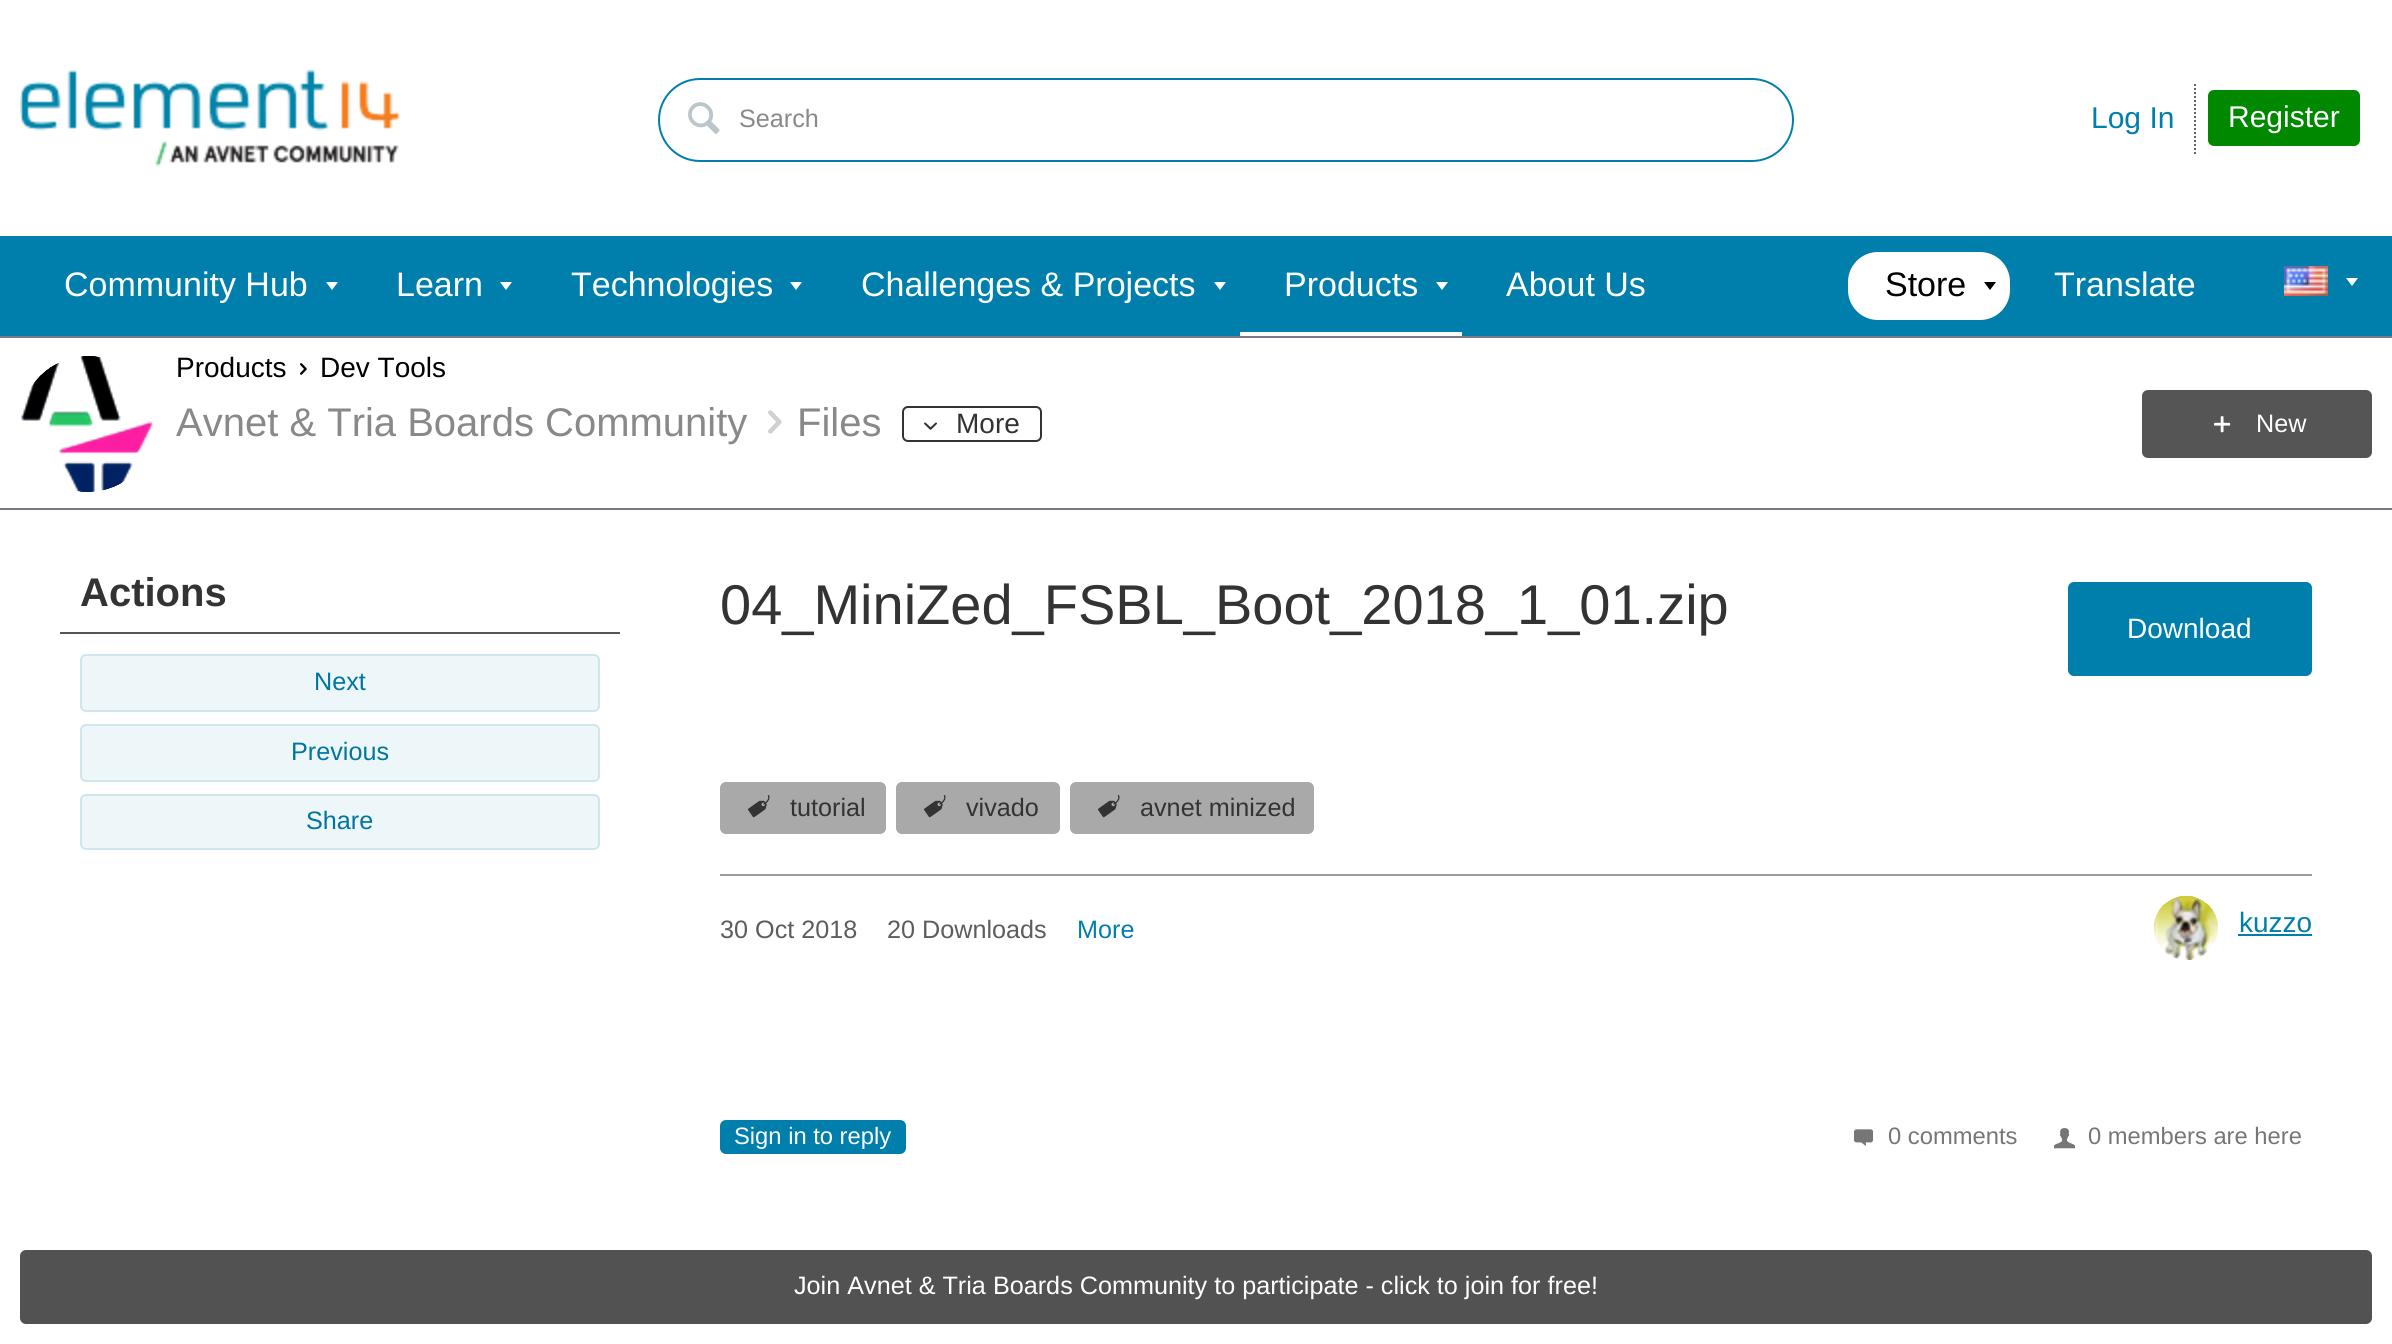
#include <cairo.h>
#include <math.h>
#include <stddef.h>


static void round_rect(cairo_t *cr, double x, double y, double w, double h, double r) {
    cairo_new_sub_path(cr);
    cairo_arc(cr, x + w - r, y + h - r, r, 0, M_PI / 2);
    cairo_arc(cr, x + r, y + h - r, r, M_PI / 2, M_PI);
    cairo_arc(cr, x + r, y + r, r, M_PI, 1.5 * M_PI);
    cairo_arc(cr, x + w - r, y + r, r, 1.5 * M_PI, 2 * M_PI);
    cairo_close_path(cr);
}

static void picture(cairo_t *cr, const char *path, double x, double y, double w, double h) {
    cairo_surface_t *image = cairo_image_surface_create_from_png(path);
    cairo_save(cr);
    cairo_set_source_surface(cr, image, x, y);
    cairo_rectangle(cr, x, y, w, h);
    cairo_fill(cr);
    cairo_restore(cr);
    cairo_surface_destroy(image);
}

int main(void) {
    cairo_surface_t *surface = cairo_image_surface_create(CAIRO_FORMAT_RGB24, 2392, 1344);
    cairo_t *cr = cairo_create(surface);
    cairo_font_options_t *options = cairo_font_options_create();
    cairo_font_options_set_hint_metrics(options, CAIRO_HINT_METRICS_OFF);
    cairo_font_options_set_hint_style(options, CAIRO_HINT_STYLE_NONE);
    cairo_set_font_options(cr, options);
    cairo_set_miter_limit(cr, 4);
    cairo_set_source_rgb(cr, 1, 1, 1);
    cairo_paint(cr);
    picture(cr, "img1.png", 20, 69, 380, 98);
    round_rect(cr, 659, 79, 1134, 82, 41);
    cairo_set_source_rgb(cr, 0, 0.498, 0.675);
    cairo_stroke(cr);
    picture(cr, "img2.png", 688, 102, 32, 32);
    cairo_select_font_face(cr, "Liberation Sans", CAIRO_FONT_SLANT_NORMAL, CAIRO_FONT_WEIGHT_NORMAL);
    cairo_set_font_size(cr, 25.2);
    cairo_set_source_rgb(cr, 0.537, 0.537, 0.537);
    cairo_move_to(cr, 739, 127);
    cairo_show_text(cr, "Search");
    cairo_set_font_size(cr, 30);
    cairo_set_source_rgb(cr, 0, 0.498, 0.675);
    cairo_move_to(cr, 2091, 128);
    cairo_show_text(cr, "Log In");
    cairo_new_path(cr);
    cairo_move_to(cr, 2195, 84);
    cairo_line_to(cr, 2195, 154);
    cairo_set_source_rgb(cr, 0.4, 0.4, 0.4);
    cairo_set_dash(cr, (double[]){2, 2}, 2, 0);
    cairo_stroke(cr);
    cairo_set_source_rgb(cr, 0, 0.533, 0);
    round_rect(cr, 2208, 90, 152, 56, 6);
    cairo_fill(cr);
    cairo_set_source_rgb(cr, 1, 1, 1);
    cairo_move_to(cr, 2228, 127);
    cairo_show_text(cr, "Register");
    cairo_set_source_rgb(cr, 0, 0.498, 0.675);
    cairo_rectangle(cr, 0, 236, 2392, 100);
    cairo_fill(cr);
    cairo_set_font_size(cr, 34);
    cairo_set_source_rgb(cr, 1, 1, 1);
    cairo_move_to(cr, 64, 296);
    cairo_show_text(cr, "Community Hub");
    cairo_new_path(cr);
    cairo_move_to(cr, 326, 282);
    cairo_line_to(cr, 338, 282);
    cairo_line_to(cr, 332, 290);
    cairo_close_path(cr);
    cairo_fill(cr);
    cairo_move_to(cr, 396, 296);
    cairo_show_text(cr, "Learn");
    cairo_new_path(cr);
    cairo_move_to(cr, 500, 282);
    cairo_line_to(cr, 512, 282);
    cairo_line_to(cr, 506, 290);
    cairo_close_path(cr);
    cairo_fill(cr);
    cairo_move_to(cr, 571, 296);
    cairo_show_text(cr, "Technologies");
    cairo_new_path(cr);
    cairo_move_to(cr, 790, 282);
    cairo_line_to(cr, 802, 282);
    cairo_line_to(cr, 796, 290);
    cairo_close_path(cr);
    cairo_fill(cr);
    cairo_move_to(cr, 861, 296);
    cairo_show_text(cr, "Challenges & Projects");
    cairo_new_path(cr);
    cairo_move_to(cr, 1214, 282);
    cairo_line_to(cr, 1226, 282);
    cairo_line_to(cr, 1220, 290);
    cairo_close_path(cr);
    cairo_fill(cr);
    cairo_move_to(cr, 1284, 296);
    cairo_show_text(cr, "Products");
    cairo_new_path(cr);
    cairo_move_to(cr, 1436, 282);
    cairo_line_to(cr, 1448, 282);
    cairo_line_to(cr, 1442, 290);
    cairo_close_path(cr);
    cairo_fill(cr);
    cairo_rectangle(cr, 1240, 332, 222, 4);
    cairo_fill(cr);
    cairo_move_to(cr, 1506, 296);
    cairo_show_text(cr, "About Us");
    round_rect(cr, 1848, 252, 162, 68, 30);
    cairo_fill(cr);
    cairo_set_source_rgb(cr, 0, 0, 0);
    cairo_move_to(cr, 1885, 296);
    cairo_show_text(cr, "Store");
    cairo_new_path(cr);
    cairo_move_to(cr, 1984, 282);
    cairo_line_to(cr, 1996, 282);
    cairo_line_to(cr, 1990, 290);
    cairo_close_path(cr);
    cairo_fill(cr);
    cairo_set_source_rgb(cr, 1, 1, 1);
    cairo_move_to(cr, 2054, 296);
    cairo_show_text(cr, "Translate");
    picture(cr, "img3.png", 2284, 266, 44, 30);
    cairo_new_path(cr);
    cairo_move_to(cr, 2346, 278);
    cairo_line_to(cr, 2358, 278);
    cairo_line_to(cr, 2352, 286);
    cairo_close_path(cr);
    cairo_fill(cr);
    cairo_set_source_rgb(cr, 0.463, 0.478, 0.549);
    cairo_rectangle(cr, 0, 336, 2392, 2);
    cairo_fill(cr);
    picture(cr, "img4.png", 21, 356, 132, 136);
    picture(cr, "img5.png", 21, 356, 132, 136);
    cairo_set_font_size(cr, 28);
    cairo_set_source_rgb(cr, 0, 0, 0);
    cairo_move_to(cr, 176, 377);
    cairo_show_text(cr, "Products");
    picture(cr, "img6.png", 300, 363, 7, 12);
    cairo_move_to(cr, 320, 377);
    cairo_show_text(cr, "Dev Tools");
    cairo_set_font_size(cr, 40);
    cairo_set_source_rgb(cr, 0.537, 0.537, 0.537);
    cairo_move_to(cr, 176, 436);
    cairo_show_text(cr, "Avnet & Tria Boards Community");
    picture(cr, "img7.png", 768, 410, 14, 24);
    cairo_move_to(cr, 797, 436);
    cairo_show_text(cr, "Files");
    round_rect(cr, 903, 407, 138, 34, 5);
    cairo_set_source_rgb(cr, 0.2, 0.2, 0.2);
    cairo_set_dash(cr, NULL, 0, 0);
    cairo_stroke(cr);
    picture(cr, "img8.png", 924, 422, 13, 8);
    cairo_set_font_size(cr, 28);
    cairo_move_to(cr, 956, 433);
    cairo_show_text(cr, "More");
    cairo_set_source_rgb(cr, 0.333, 0.333, 0.333);
    round_rect(cr, 2142, 390, 230, 68, 6);
    cairo_fill(cr);
    picture(cr, "img9.png", 2214, 416, 17, 17);
    cairo_set_font_size(cr, 25.2);
    cairo_set_source_rgb(cr, 1, 1, 1);
    cairo_move_to(cr, 2256, 432);
    cairo_show_text(cr, "New");
    cairo_set_source_rgb(cr, 0.322, 0.322, 0.322);
    round_rect(cr, 20, 1250, 2352, 74, 6);
    cairo_fill(cr);
    cairo_set_source_rgb(cr, 1, 1, 1);
    cairo_move_to(cr, 794, 1294);
    cairo_show_text(cr, "Join Avnet & Tria Boards Community to participate - click to join for free!");
    cairo_set_source_rgb(cr, 0.463, 0.478, 0.549);
    cairo_rectangle(cr, 0, 508, 2392, 2);
    cairo_fill(cr);
    cairo_set_source_rgb(cr, 0.333, 0.333, 0.333);
    cairo_rectangle(cr, 60, 632, 560, 2);
    cairo_fill(cr);
    cairo_select_font_face(cr, "Liberation Sans", CAIRO_FONT_SLANT_NORMAL, CAIRO_FONT_WEIGHT_BOLD);
    cairo_set_font_size(cr, 40);
    cairo_set_source_rgb(cr, 0.2, 0.2, 0.2);
    cairo_move_to(cr, 80, 606);
    cairo_show_text(cr, "Actions");
    cairo_set_source_rgb(cr, 0.929, 0.961, 0.969);
    round_rect(cr, 81, 655, 518, 56, 5);
    cairo_fill_preserve(cr);
    cairo_set_source_rgb(cr, 0.812, 0.902, 0.929);
    cairo_stroke(cr);
    cairo_select_font_face(cr, "Liberation Sans", CAIRO_FONT_SLANT_NORMAL, CAIRO_FONT_WEIGHT_NORMAL);
    cairo_set_font_size(cr, 25.2);
    cairo_set_source_rgb(cr, 0, 0.463, 0.624);
    cairo_move_to(cr, 314, 690);
    cairo_show_text(cr, "Next");
    cairo_set_source_rgb(cr, 0.929, 0.961, 0.969);
    round_rect(cr, 81, 725, 518, 56, 5);
    cairo_fill_preserve(cr);
    cairo_set_source_rgb(cr, 0.812, 0.902, 0.929);
    cairo_stroke(cr);
    cairo_set_source_rgb(cr, 0, 0.463, 0.624);
    cairo_move_to(cr, 291, 760);
    cairo_show_text(cr, "Previous");
    cairo_set_source_rgb(cr, 0.929, 0.961, 0.969);
    round_rect(cr, 81, 795, 518, 54, 5);
    cairo_fill_preserve(cr);
    cairo_set_source_rgb(cr, 0.812, 0.902, 0.929);
    cairo_stroke(cr);
    cairo_set_source_rgb(cr, 0, 0.463, 0.624);
    cairo_move_to(cr, 306, 829);
    cairo_show_text(cr, "Share");
    cairo_set_font_size(cr, 56);
    cairo_set_source_rgb(cr, 0.2, 0.2, 0.2);
    cairo_move_to(cr, 720, 624);
    cairo_show_text(cr, "04_MiniZed_FSBL_Boot_2018_1_01.zip");
    cairo_set_source_rgb(cr, 0, 0.498, 0.675);
    round_rect(cr, 2068, 582, 244, 94, 6);
    cairo_fill(cr);
    cairo_set_font_size(cr, 28);
    cairo_set_source_rgb(cr, 1, 1, 1);
    cairo_move_to(cr, 2127, 638);
    cairo_show_text(cr, "Download");
    cairo_set_source_rgb(cr, 0.663, 0.663, 0.663);
    round_rect(cr, 720, 782, 166, 52, 6);
    cairo_fill(cr);
    picture(cr, "img10.png", 748, 795, 22, 23);
    cairo_set_font_size(cr, 25.2);
    cairo_set_source_rgb(cr, 0.2, 0.2, 0.2);
    cairo_move_to(cr, 790, 816);
    cairo_show_text(cr, "tutorial");
    cairo_set_source_rgb(cr, 0.663, 0.663, 0.663);
    round_rect(cr, 896, 782, 164, 52, 6);
    cairo_fill(cr);
    picture(cr, "img10.png", 924, 795, 22, 23);
    cairo_set_source_rgb(cr, 0.2, 0.2, 0.2);
    cairo_move_to(cr, 966, 816);
    cairo_show_text(cr, "vivado");
    cairo_set_source_rgb(cr, 0.663, 0.663, 0.663);
    round_rect(cr, 1070, 782, 244, 52, 6);
    cairo_fill(cr);
    picture(cr, "img10.png", 1098, 795, 22, 23);
    cairo_set_source_rgb(cr, 0.2, 0.2, 0.2);
    cairo_move_to(cr, 1140, 816);
    cairo_show_text(cr, "avnet minized");
    cairo_set_source_rgb(cr, 0.612, 0.612, 0.612);
    cairo_rectangle(cr, 720, 874, 1592, 2);
    cairo_fill(cr);
    cairo_set_source_rgb(cr, 0.365, 0.365, 0.365);
    cairo_move_to(cr, 720, 938);
    cairo_show_text(cr, "30 Oct 2018");
    cairo_move_to(cr, 887, 938);
    cairo_show_text(cr, "20 Downloads");
    cairo_set_source_rgb(cr, 0, 0.498, 0.675);
    cairo_move_to(cr, 1077, 938);
    cairo_show_text(cr, "More");
    picture(cr, "img11.png", 2154, 896, 64, 64);
    picture(cr, "img12.png", 2154, 896, 64, 64);
    cairo_set_font_size(cr, 28);
    cairo_move_to(cr, 2239, 932);
    cairo_show_text(cr, "kuzzo");
    cairo_rectangle(cr, 2238, 934, 74, 2);
    cairo_fill(cr);
    round_rect(cr, 720, 1120, 186, 34, 6);
    cairo_fill(cr);
    cairo_set_font_size(cr, 23.75);
    cairo_set_source_rgb(cr, 1, 1, 1);
    cairo_move_to(cr, 734, 1144);
    cairo_show_text(cr, "Sign in to reply");
    picture(cr, "img13.png", 1854, 1129, 20, 17);
    cairo_set_source_rgb(cr, 0.463, 0.463, 0.463);
    cairo_move_to(cr, 1888, 1144);
    cairo_show_text(cr, "0 comments");
    picture(cr, "img14.png", 2054, 1128, 22, 21);
    cairo_move_to(cr, 2088, 1144);
    cairo_show_text(cr, "0 members are here");
    cairo_surface_write_to_png(surface, "page.png");
    cairo_font_options_destroy(options);
    cairo_destroy(cr);
    cairo_surface_destroy(surface);
    return 0;
}
